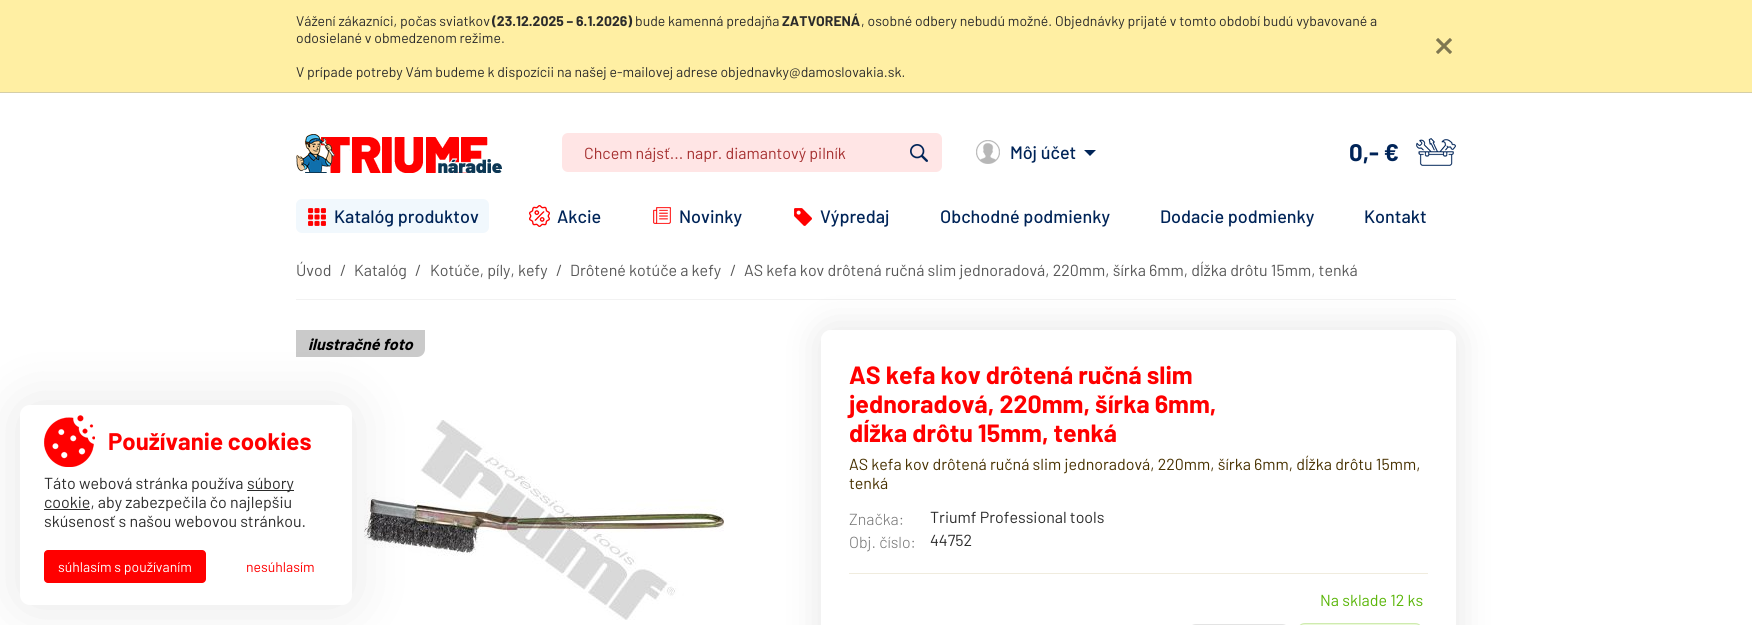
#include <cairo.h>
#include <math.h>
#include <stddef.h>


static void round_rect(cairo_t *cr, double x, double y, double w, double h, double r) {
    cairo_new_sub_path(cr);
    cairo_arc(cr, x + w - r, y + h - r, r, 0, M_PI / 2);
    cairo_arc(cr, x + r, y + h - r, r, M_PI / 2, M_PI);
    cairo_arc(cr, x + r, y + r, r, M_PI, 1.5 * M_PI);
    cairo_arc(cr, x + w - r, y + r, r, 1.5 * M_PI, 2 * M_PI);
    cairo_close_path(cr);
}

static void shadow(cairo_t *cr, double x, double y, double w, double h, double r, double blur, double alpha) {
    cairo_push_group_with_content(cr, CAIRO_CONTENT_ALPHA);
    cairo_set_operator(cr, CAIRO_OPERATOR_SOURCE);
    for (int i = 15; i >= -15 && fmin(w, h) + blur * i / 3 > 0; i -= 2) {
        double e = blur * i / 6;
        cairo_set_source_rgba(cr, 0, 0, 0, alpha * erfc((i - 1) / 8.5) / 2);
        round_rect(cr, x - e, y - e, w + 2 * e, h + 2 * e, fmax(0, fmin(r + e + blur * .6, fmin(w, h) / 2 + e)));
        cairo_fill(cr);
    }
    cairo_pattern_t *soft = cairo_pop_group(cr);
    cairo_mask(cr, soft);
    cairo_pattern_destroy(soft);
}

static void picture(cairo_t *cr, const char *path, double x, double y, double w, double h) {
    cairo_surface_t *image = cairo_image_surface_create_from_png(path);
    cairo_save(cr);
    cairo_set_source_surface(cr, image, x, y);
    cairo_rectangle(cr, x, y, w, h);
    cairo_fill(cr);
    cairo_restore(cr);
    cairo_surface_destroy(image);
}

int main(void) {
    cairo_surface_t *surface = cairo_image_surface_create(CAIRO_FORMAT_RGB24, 1752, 625);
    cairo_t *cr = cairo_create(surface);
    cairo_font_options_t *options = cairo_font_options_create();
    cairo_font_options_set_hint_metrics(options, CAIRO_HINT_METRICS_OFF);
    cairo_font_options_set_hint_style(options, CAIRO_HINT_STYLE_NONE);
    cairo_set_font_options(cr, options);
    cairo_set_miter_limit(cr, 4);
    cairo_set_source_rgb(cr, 1, 1, 1);
    cairo_paint(cr);
    cairo_set_source_rgb(cr, 0.792, 0.792, 0.792);
    cairo_new_path(cr);
    cairo_move_to(cr, 296, 330);
    cairo_line_to(cr, 425, 330);
    cairo_line_to(cr, 425, 349);
    cairo_curve_to(cr, 425, 353.5, 421.5, 357, 417, 357);
    cairo_line_to(cr, 296, 357);
    cairo_close_path(cr);
    cairo_fill(cr);
    picture(cr, "img11.png", 364, 420, 360, 200);
    cairo_set_source_rgb(cr, 0, 0, 0);
    shadow(cr, 20, 405, 332, 200, 10, 29, 0.1);
    cairo_set_source_rgb(cr, 1, 1, 1);
    round_rect(cr, 20, 405, 332, 200, 10);
    cairo_fill(cr);
    picture(cr, "img1.png", 44, 415, 51, 52);
    cairo_select_font_face(cr, "Barlow", CAIRO_FONT_SLANT_NORMAL, CAIRO_FONT_WEIGHT_BOLD);
    cairo_set_font_size(cr, 24);
    cairo_set_source_rgb(cr, 1, 0, 0);
    cairo_move_to(cr, 108, 450);
    cairo_show_text(cr, "Používanie cookies");
    cairo_select_font_face(cr, "Barlow", CAIRO_FONT_SLANT_NORMAL, CAIRO_FONT_WEIGHT_NORMAL);
    cairo_set_font_size(cr, 16);
    cairo_set_source_rgb(cr, 0.169, 0.169, 0.169);
    cairo_move_to(cr, 44, 489);
    cairo_show_text(cr, "Táto webová stránka používa");
    cairo_rectangle(cr, 247, 490, 47, 1);
    cairo_fill(cr);
    cairo_move_to(cr, 247, 489);
    cairo_show_text(cr, "súbory");
    cairo_rectangle(cr, 44, 509, 46, 1);
    cairo_fill(cr);
    cairo_move_to(cr, 44, 508);
    cairo_show_text(cr, "cookie, aby zabezpečila čo najlepšiu");
    cairo_move_to(cr, 44, 527);
    cairo_show_text(cr, "skúsenosť s našou webovou stránkou.");
    cairo_set_source_rgb(cr, 1, 0, 0);
    round_rect(cr, 44, 550, 162, 33, 4);
    cairo_fill(cr);
    cairo_set_font_size(cr, 14);
    cairo_set_source_rgb(cr, 1, 1, 1);
    cairo_move_to(cr, 58, 572);
    cairo_show_text(cr, "súhlasím s používaním");
    cairo_set_source_rgb(cr, 1, 0, 0);
    cairo_move_to(cr, 246, 572);
    cairo_show_text(cr, "nesúhlasím");
    cairo_set_source_rgb(cr, 1, 0.937, 0.639);
    cairo_rectangle(cr, 0, 0, 1752, 92);
    cairo_fill(cr);
    cairo_set_source_rgb(cr, 0.835, 0.808, 0.655);
    cairo_rectangle(cr, 0, 92, 1752, 1);
    cairo_fill(cr);
    cairo_set_source_rgb(cr, 0.169, 0.169, 0.169);
    cairo_move_to(cr, 296, 26);
    cairo_show_text(cr, "Vážení zákazníci, počas sviatkov");
    cairo_select_font_face(cr, "Barlow", CAIRO_FONT_SLANT_NORMAL, CAIRO_FONT_WEIGHT_BOLD);
    cairo_move_to(cr, 492, 26);
    cairo_show_text(cr, "(23.12.2025 – 6.1.2026)");
    cairo_select_font_face(cr, "Barlow", CAIRO_FONT_SLANT_NORMAL, CAIRO_FONT_WEIGHT_NORMAL);
    cairo_move_to(cr, 635, 26);
    cairo_show_text(cr, "bude kamenná predajňa");
    cairo_select_font_face(cr, "Barlow", CAIRO_FONT_SLANT_NORMAL, CAIRO_FONT_WEIGHT_BOLD);
    cairo_move_to(cr, 782, 26);
    cairo_show_text(cr, "ZATVORENÁ");
    cairo_select_font_face(cr, "Barlow", CAIRO_FONT_SLANT_NORMAL, CAIRO_FONT_WEIGHT_NORMAL);
    cairo_move_to(cr, 861, 26);
    cairo_show_text(cr, ", osobné odbery nebudú možné. Objednávky prijaté v tomto období budú vybavované a");
    cairo_move_to(cr, 296, 43);
    cairo_show_text(cr, "odosielané v obmedzenom režime.");
    cairo_move_to(cr, 296, 77);
    cairo_show_text(cr, "V prípade potreby Vám budeme k dispozícii na našej e-mailovej adrese objednavky@damoslovakia.sk.");
    picture(cr, "img2.png", 1436, 38, 16, 16);
    picture(cr, "img3.png", 296, 134, 206, 39);
    cairo_set_source_rgb(cr, 1, 0.898, 0.898);
    round_rect(cr, 562, 133, 380, 39, 6);
    cairo_fill(cr);
    cairo_save(cr);
    cairo_rectangle(cr, 584, 143, 314, 19);
    cairo_clip(cr);
    cairo_set_font_size(cr, 16);
    cairo_set_source_rgb(cr, 0.647, 0.184, 0.184);
    cairo_move_to(cr, 584, 159);
    cairo_show_text(cr, "Chcem nájsť... napr. diamantový pilník");
    cairo_restore(cr);
    picture(cr, "img4.png", 910, 144, 18, 18);
    picture(cr, "img5.png", 976, 140, 24, 24);
    cairo_select_font_face(cr, "Barlow Medium", CAIRO_FONT_SLANT_NORMAL, CAIRO_FONT_WEIGHT_NORMAL);
    cairo_set_font_size(cr, 18);
    cairo_set_source_rgb(cr, 0, 0.141, 0.345);
    cairo_move_to(cr, 1010, 159);
    cairo_show_text(cr, "Môj účet");
    cairo_new_path(cr);
    cairo_move_to(cr, 1084, 150);
    cairo_line_to(cr, 1096, 150);
    cairo_line_to(cr, 1090, 156);
    cairo_close_path(cr);
    cairo_fill(cr);
    cairo_select_font_face(cr, "Barlow", CAIRO_FONT_SLANT_NORMAL, CAIRO_FONT_WEIGHT_BOLD);
    cairo_set_font_size(cr, 24);
    cairo_move_to(cr, 1349, 161);
    cairo_show_text(cr, "0,- €");
    picture(cr, "img6.png", 1416, 138, 40, 28);
    cairo_set_source_rgb(cr, 0.945, 0.969, 0.992);
    round_rect(cr, 296, 199, 193, 34, 6);
    cairo_fill(cr);
    picture(cr, "img7.png", 308, 208, 18, 18);
    cairo_select_font_face(cr, "Barlow Medium", CAIRO_FONT_SLANT_NORMAL, CAIRO_FONT_WEIGHT_NORMAL);
    cairo_set_font_size(cr, 18);
    cairo_set_source_rgb(cr, 0, 0.141, 0.345);
    cairo_move_to(cr, 334, 223);
    cairo_show_text(cr, "Katalóg produktov");
    picture(cr, "img8.png", 529, 205, 21, 22);
    cairo_move_to(cr, 557, 223);
    cairo_show_text(cr, "Akcie");
    picture(cr, "img9.png", 653, 207, 18, 17);
    cairo_move_to(cr, 679, 223);
    cairo_show_text(cr, "Novinky");
    picture(cr, "img10.png", 794, 208, 18, 18);
    cairo_move_to(cr, 820, 223);
    cairo_show_text(cr, "Výpredaj");
    cairo_move_to(cr, 940, 223);
    cairo_show_text(cr, "Obchodné podmienky");
    cairo_move_to(cr, 1160, 223);
    cairo_show_text(cr, "Dodacie podmienky");
    cairo_move_to(cr, 1364, 223);
    cairo_show_text(cr, "Kontakt");
    cairo_set_source_rgb(cr, 0.949, 0.949, 0.949);
    cairo_rectangle(cr, 296, 299, 1160, 1);
    cairo_fill(cr);
    cairo_select_font_face(cr, "Barlow", CAIRO_FONT_SLANT_NORMAL, CAIRO_FONT_WEIGHT_NORMAL);
    cairo_set_font_size(cr, 16);
    cairo_set_source_rgb(cr, 0.341, 0.341, 0.341);
    cairo_move_to(cr, 296, 276);
    cairo_show_text(cr, "Úvod");
    cairo_move_to(cr, 340, 276);
    cairo_show_text(cr, "/");
    cairo_move_to(cr, 354, 276);
    cairo_show_text(cr, "Katalóg");
    cairo_move_to(cr, 415, 276);
    cairo_show_text(cr, "/");
    cairo_move_to(cr, 430, 276);
    cairo_show_text(cr, "Kotúče, píly, kefy");
    cairo_move_to(cr, 556, 276);
    cairo_show_text(cr, "/");
    cairo_move_to(cr, 570, 276);
    cairo_show_text(cr, "Drôtené kotúče a kefy");
    cairo_move_to(cr, 730, 276);
    cairo_show_text(cr, "/");
    cairo_move_to(cr, 744, 276);
    cairo_show_text(cr, "AS kefa kov drôtená ručná slim jednoradová, 220mm, šírka 6mm, dĺžka drôtu 15mm, tenká");
    cairo_select_font_face(cr, "Barlow", CAIRO_FONT_SLANT_ITALIC, CAIRO_FONT_WEIGHT_BOLD);
    cairo_set_source_rgb(cr, 0, 0, 0);
    cairo_move_to(cr, 308, 350);
    cairo_show_text(cr, "ilustračné foto");
    cairo_save(cr);
    cairo_set_fill_rule(cr, CAIRO_FILL_RULE_EVEN_ODD);
    cairo_new_path(cr);
    cairo_move_to(cr, 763, 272);
    cairo_line_to(cr, 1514, 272);
    cairo_line_to(cr, 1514, 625);
    cairo_line_to(cr, 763, 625);
    cairo_close_path(cr);
    cairo_move_to(cr, 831, 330);
    cairo_line_to(cr, 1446, 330);
    cairo_curve_to(cr, 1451.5, 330, 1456, 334.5, 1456, 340);
    cairo_line_to(cr, 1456, 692);
    cairo_curve_to(cr, 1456, 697.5, 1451.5, 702, 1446, 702);
    cairo_line_to(cr, 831, 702);
    cairo_curve_to(cr, 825.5, 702, 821, 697.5, 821, 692);
    cairo_line_to(cr, 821, 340);
    cairo_curve_to(cr, 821, 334.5, 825.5, 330, 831, 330);
    cairo_close_path(cr);
    cairo_clip(cr);
    cairo_set_source_rgb(cr, 0.247, 0.247, 0.247);
    shadow(cr, 821, 330, 635, 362, 10, 19, 0.14);
    cairo_restore(cr);
    cairo_select_font_face(cr, "Barlow", CAIRO_FONT_SLANT_NORMAL, CAIRO_FONT_WEIGHT_BOLD);
    cairo_set_font_size(cr, 25);
    cairo_set_source_rgb(cr, 1, 0, 0);
    cairo_move_to(cr, 849, 384);
    cairo_show_text(cr, "AS kefa kov drôtená ručná slim");
    cairo_move_to(cr, 849, 413);
    cairo_show_text(cr, "jednoradová, 220mm, šírka 6mm,");
    cairo_move_to(cr, 849, 442);
    cairo_show_text(cr, "dĺžka drôtu 15mm, tenká");
    cairo_select_font_face(cr, "Barlow", CAIRO_FONT_SLANT_NORMAL, CAIRO_FONT_WEIGHT_NORMAL);
    cairo_set_font_size(cr, 16);
    cairo_set_source_rgb(cr, 0.282, 0.192, 0);
    cairo_move_to(cr, 849, 470);
    cairo_show_text(cr, "AS kefa kov drôtená ručná slim jednoradová, 220mm, šírka 6mm, dĺžka drôtu 15mm,");
    cairo_move_to(cr, 849, 489);
    cairo_show_text(cr, "tenká");
    cairo_select_font_face(cr, "Barlow Light", CAIRO_FONT_SLANT_NORMAL, CAIRO_FONT_WEIGHT_NORMAL);
    cairo_set_source_rgb(cr, 0.439, 0.439, 0.439);
    cairo_move_to(cr, 849, 525);
    cairo_show_text(cr, "Značka:");
    cairo_select_font_face(cr, "Barlow", CAIRO_FONT_SLANT_NORMAL, CAIRO_FONT_WEIGHT_NORMAL);
    cairo_set_source_rgb(cr, 0.169, 0.169, 0.169);
    cairo_move_to(cr, 930, 523);
    cairo_show_text(cr, "Triumf Professional tools");
    cairo_select_font_face(cr, "Barlow Light", CAIRO_FONT_SLANT_NORMAL, CAIRO_FONT_WEIGHT_NORMAL);
    cairo_set_source_rgb(cr, 0.439, 0.439, 0.439);
    cairo_move_to(cr, 849, 548);
    cairo_show_text(cr, "Obj. číslo:");
    cairo_select_font_face(cr, "Barlow", CAIRO_FONT_SLANT_NORMAL, CAIRO_FONT_WEIGHT_NORMAL);
    cairo_set_source_rgb(cr, 0.169, 0.169, 0.169);
    cairo_move_to(cr, 930, 546);
    cairo_show_text(cr, "44752");
    cairo_set_source_rgb(cr, 0.941, 0.925, 0.871);
    cairo_rectangle(cr, 849, 573, 579, 1);
    cairo_fill(cr);
    cairo_set_source_rgb(cr, 0.349, 0.71, 0.031);
    cairo_move_to(cr, 1320, 606);
    cairo_show_text(cr, "Na sklade 12 ks");
    round_rect(cr, 1188.5, 624.5, 101, 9, 7.5);
    cairo_set_source_rgb(cr, 0.89, 0.89, 0.89);
    cairo_set_line_width(cr, 1);
    cairo_stroke(cr);
    cairo_set_source_rgb(cr, 0.918, 0.976, 0.851);
    round_rect(cr, 1297, 623, 126, 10, 8);
    cairo_fill(cr);
    round_rect(cr, 1297.5, 623.5, 125, 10, 7.5);
    cairo_set_source_rgba(cr, 0.729, 0.882, 0.569, 0.56);
    cairo_stroke(cr);
    cairo_surface_write_to_png(surface, "page.png");
    cairo_font_options_destroy(options);
    cairo_destroy(cr);
    cairo_surface_destroy(surface);
    return 0;
}
